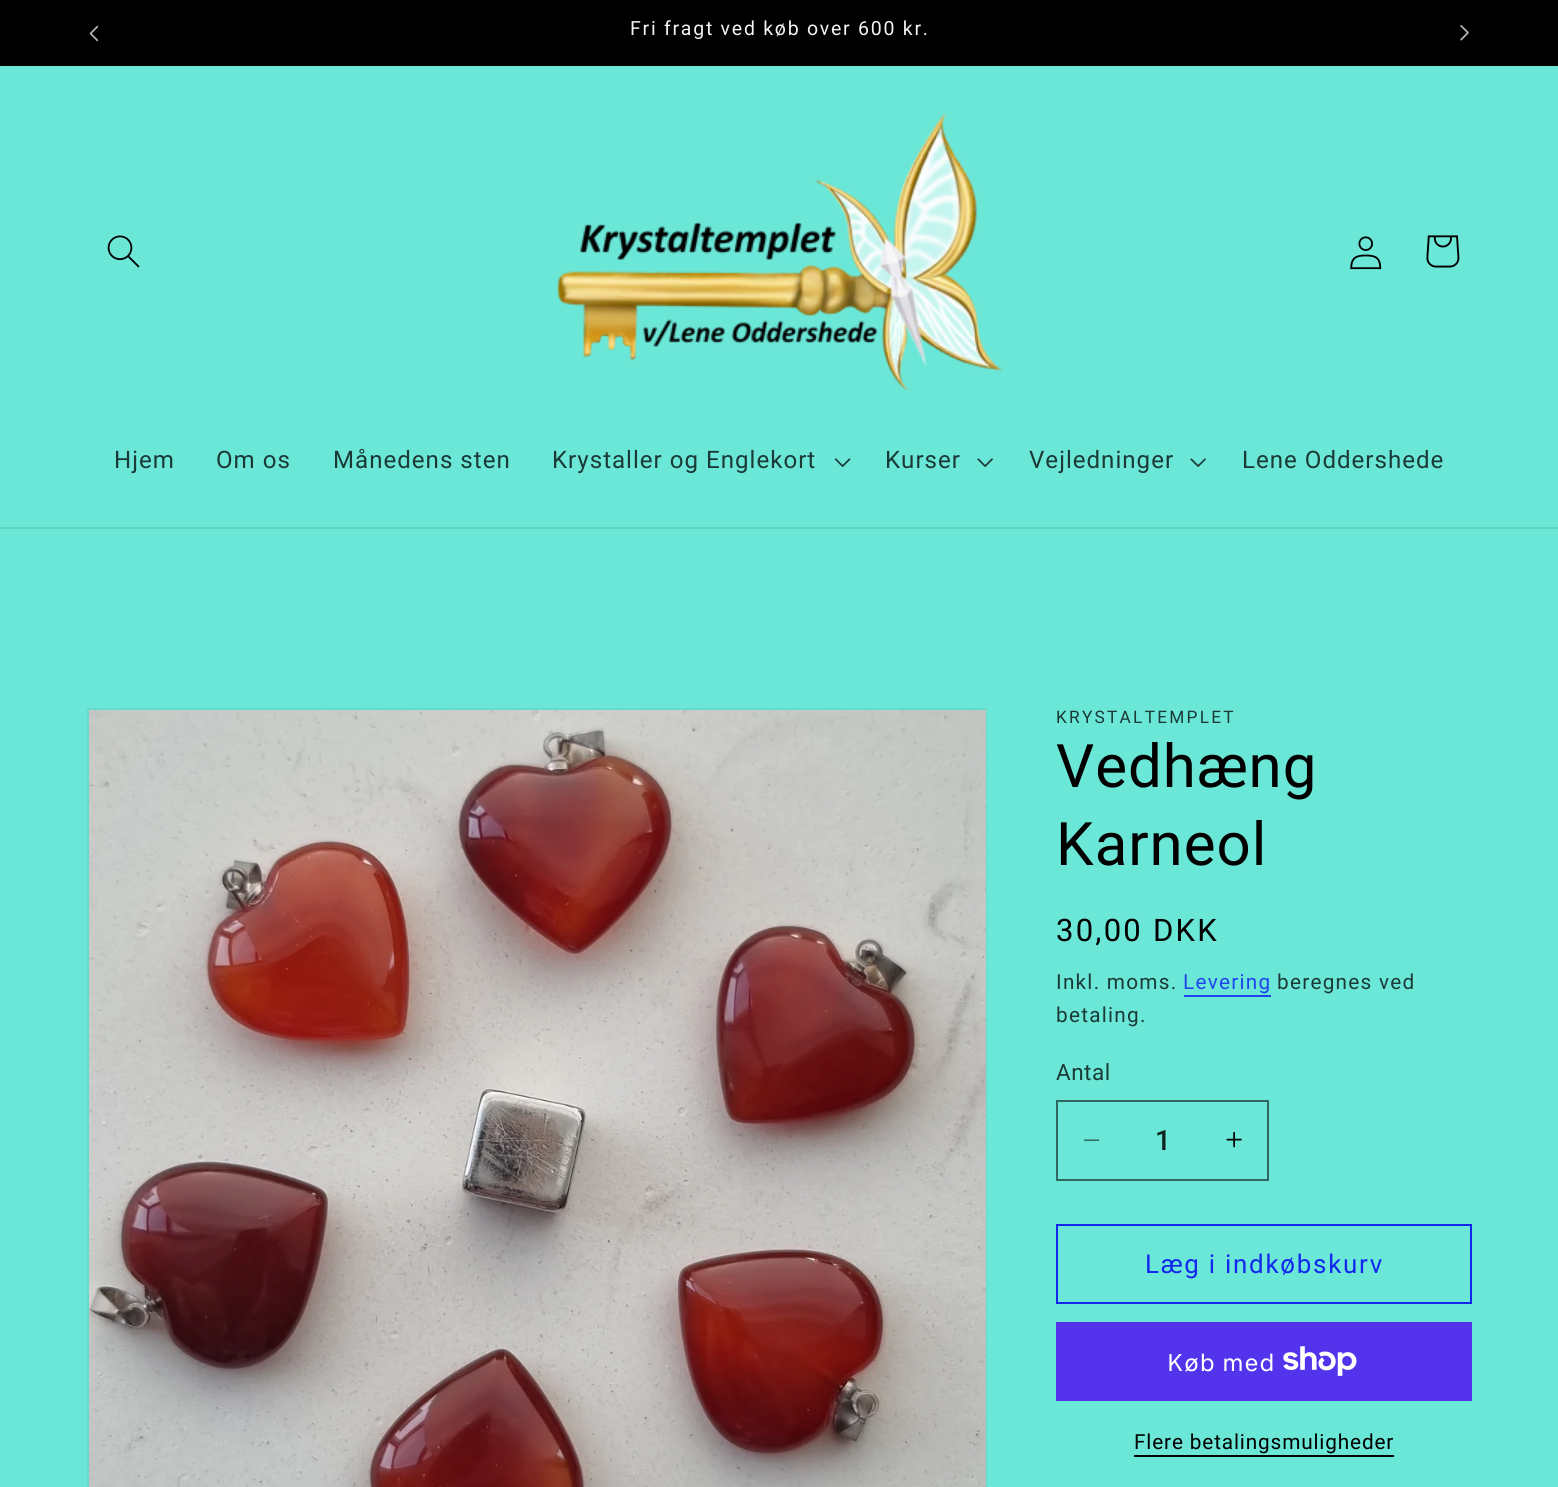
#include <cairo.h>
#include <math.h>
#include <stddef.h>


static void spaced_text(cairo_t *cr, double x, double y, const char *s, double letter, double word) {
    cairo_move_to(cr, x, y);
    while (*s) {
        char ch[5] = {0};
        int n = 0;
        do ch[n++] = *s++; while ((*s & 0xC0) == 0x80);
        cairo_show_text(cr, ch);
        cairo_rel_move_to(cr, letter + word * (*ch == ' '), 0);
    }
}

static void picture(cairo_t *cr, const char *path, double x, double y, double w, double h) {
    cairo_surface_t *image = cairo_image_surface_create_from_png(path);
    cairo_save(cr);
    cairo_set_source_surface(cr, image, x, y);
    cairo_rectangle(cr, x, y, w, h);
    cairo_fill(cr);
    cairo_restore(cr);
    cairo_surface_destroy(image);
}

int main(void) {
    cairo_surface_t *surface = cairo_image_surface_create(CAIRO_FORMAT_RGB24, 1558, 1487);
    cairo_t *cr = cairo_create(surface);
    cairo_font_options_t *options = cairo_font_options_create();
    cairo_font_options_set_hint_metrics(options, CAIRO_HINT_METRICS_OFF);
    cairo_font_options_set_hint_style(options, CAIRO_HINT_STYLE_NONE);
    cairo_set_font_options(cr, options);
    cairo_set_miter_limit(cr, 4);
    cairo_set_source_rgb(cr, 0.42, 0.906, 0.847);
    cairo_paint(cr);
    cairo_set_source_rgb(cr, 0, 0, 0);
    cairo_rectangle(cr, 0, 0, 1558, 66);
    cairo_fill(cr);
    picture(cr, "img1.png", 89, 25, 10, 17);
    cairo_select_font_face(cr, "Roboto", CAIRO_FONT_SLANT_NORMAL, CAIRO_FONT_WEIGHT_NORMAL);
    cairo_set_font_size(cr, 19.5);
    cairo_set_source_rgb(cr, 0.953, 0.953, 0.953);
    spaced_text(cr, 630, 35, "Fri fragt ved køb over 600 kr.", 1.75, 0);
    picture(cr, "img2.png", 1460, 25, 9, 16);
    cairo_set_source_rgb(cr, 0.384, 0.835, 0.78);
    cairo_rectangle(cr, 0, 527, 1558, 2);
    cairo_fill(cr);
    picture(cr, "img3.png", 107, 235, 33, 33);
    picture(cr, "img4.png", 557, 112, 446, 279);
    picture(cr, "img5.png", 1350, 236, 32, 34);
    picture(cr, "img6.png", 1426, 235, 34, 33);
    cairo_set_font_size(cr, 24.1);
    cairo_set_source_rgb(cr, 0.106, 0.227, 0.212);
    spaced_text(cr, 114, 468, "Hjem", 1, 0);
    spaced_text(cr, 216, 468, "Om os", 1, 0);
    spaced_text(cr, 333, 468, "Månedens sten", 1, 0);
    spaced_text(cr, 552, 468, "Krystaller og Englekort", 1, 0);
    picture(cr, "img7.png", 834, 458, 17, 9);
    spaced_text(cr, 885, 468, "Kurser", 1, 0);
    picture(cr, "img8.png", 977, 458, 16, 9);
    spaced_text(cr, 1029, 468, "Vejledninger", 1, 0);
    picture(cr, "img8.png", 1190, 458, 16, 9);
    spaced_text(cr, 1242, 468, "Lene Oddershede", 1, 0);
    cairo_rectangle(cr, 88, 709, 898, 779);
    cairo_set_source_rgb(cr, 0.4, 0.859, 0.804);
    cairo_stroke(cr);
    picture(cr, "img9.png", 89, 710, 897, 777);
    cairo_set_font_size(cr, 17.25);
    cairo_set_source_rgb(cr, 0.106, 0.227, 0.212);
    spaced_text(cr, 1056, 723, "KRYSTALTEMPLET", 2.25, 0);
    cairo_set_font_size(cr, 60);
    cairo_set_source_rgb(cr, 0, 0, 0);
    spaced_text(cr, 1056, 787, "Vedhæng", 1, 0);
    spaced_text(cr, 1056, 865, "Karneol", 1, 0);
    cairo_set_font_size(cr, 31);
    spaced_text(cr, 1056, 941, "30,00 DKK", 2.25, 0);
    cairo_set_font_size(cr, 20.75);
    cairo_set_source_rgb(cr, 0.106, 0.227, 0.212);
    spaced_text(cr, 1056, 989, "Inkl. moms.", 1.25, 0);
    cairo_set_source_rgb(cr, 0.125, 0.271, 0.918);
    spaced_text(cr, 1183, 989, "Levering", 1.25, 0);
    cairo_rectangle(cr, 1184, 995, 87, 2);
    cairo_fill(cr);
    cairo_set_source_rgb(cr, 0.106, 0.227, 0.212);
    spaced_text(cr, 1277, 989, "beregnes ved", 1.25, 0);
    spaced_text(cr, 1056, 1022, "betaling.", 1.25, 0);
    cairo_set_font_size(cr, 22.5);
    spaced_text(cr, 1056, 1080, "Antal", 0.5, 0);
    picture(cr, "img10.png", 1084, 1139, 16, 3);
    picture(cr, "img11.png", 1226, 1131, 16, 17);
    cairo_rectangle(cr, 1057, 1101, 211, 79);
    cairo_set_source_rgb(cr, 0.188, 0.408, 0.38);
    cairo_stroke(cr);
    cairo_select_font_face(cr, "Roboto Medium", CAIRO_FONT_SLANT_NORMAL, CAIRO_FONT_WEIGHT_NORMAL);
    cairo_set_font_size(cr, 28);
    cairo_set_source_rgb(cr, 0.063, 0.137, 0.125);
    cairo_move_to(cr, 1155, 1150);
    cairo_show_text(cr, "1");
    cairo_rectangle(cr, 1057, 1225, 414, 78);
    cairo_set_source_rgb(cr, 0.075, 0.157, 0.929);
    cairo_stroke(cr);
    cairo_select_font_face(cr, "Roboto", CAIRO_FONT_SLANT_NORMAL, CAIRO_FONT_WEIGHT_NORMAL);
    cairo_set_font_size(cr, 25.9);
    spaced_text(cr, 1145, 1273, "Læg i indkøbskurv", 1.75, 0);
    cairo_set_source_rgb(cr, 0.329, 0.2, 0.922);
    cairo_rectangle(cr, 1056, 1322, 416, 79);
    cairo_fill(cr);
    cairo_select_font_face(cr, "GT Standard", CAIRO_FONT_SLANT_NORMAL, CAIRO_FONT_WEIGHT_NORMAL);
    cairo_set_font_size(cr, 24);
    cairo_set_source_rgb(cr, 1, 1, 1);
    spaced_text(cr, 1167, 1371, "Køb med", 1, 0);
    picture(cr, "img12.png", 1283, 1346, 74, 30);
    cairo_select_font_face(cr, "Roboto", CAIRO_FONT_SLANT_NORMAL, CAIRO_FONT_WEIGHT_NORMAL);
    cairo_set_font_size(cr, 20.75);
    cairo_set_source_rgb(cr, 0, 0, 0);
    spaced_text(cr, 1134, 1449, "Flere betalingsmuligheder", 0.85, 0);
    cairo_rectangle(cr, 1134, 1455, 260, 2);
    cairo_fill(cr);
    cairo_surface_write_to_png(surface, "page.png");
    cairo_font_options_destroy(options);
    cairo_destroy(cr);
    cairo_surface_destroy(surface);
    return 0;
}
